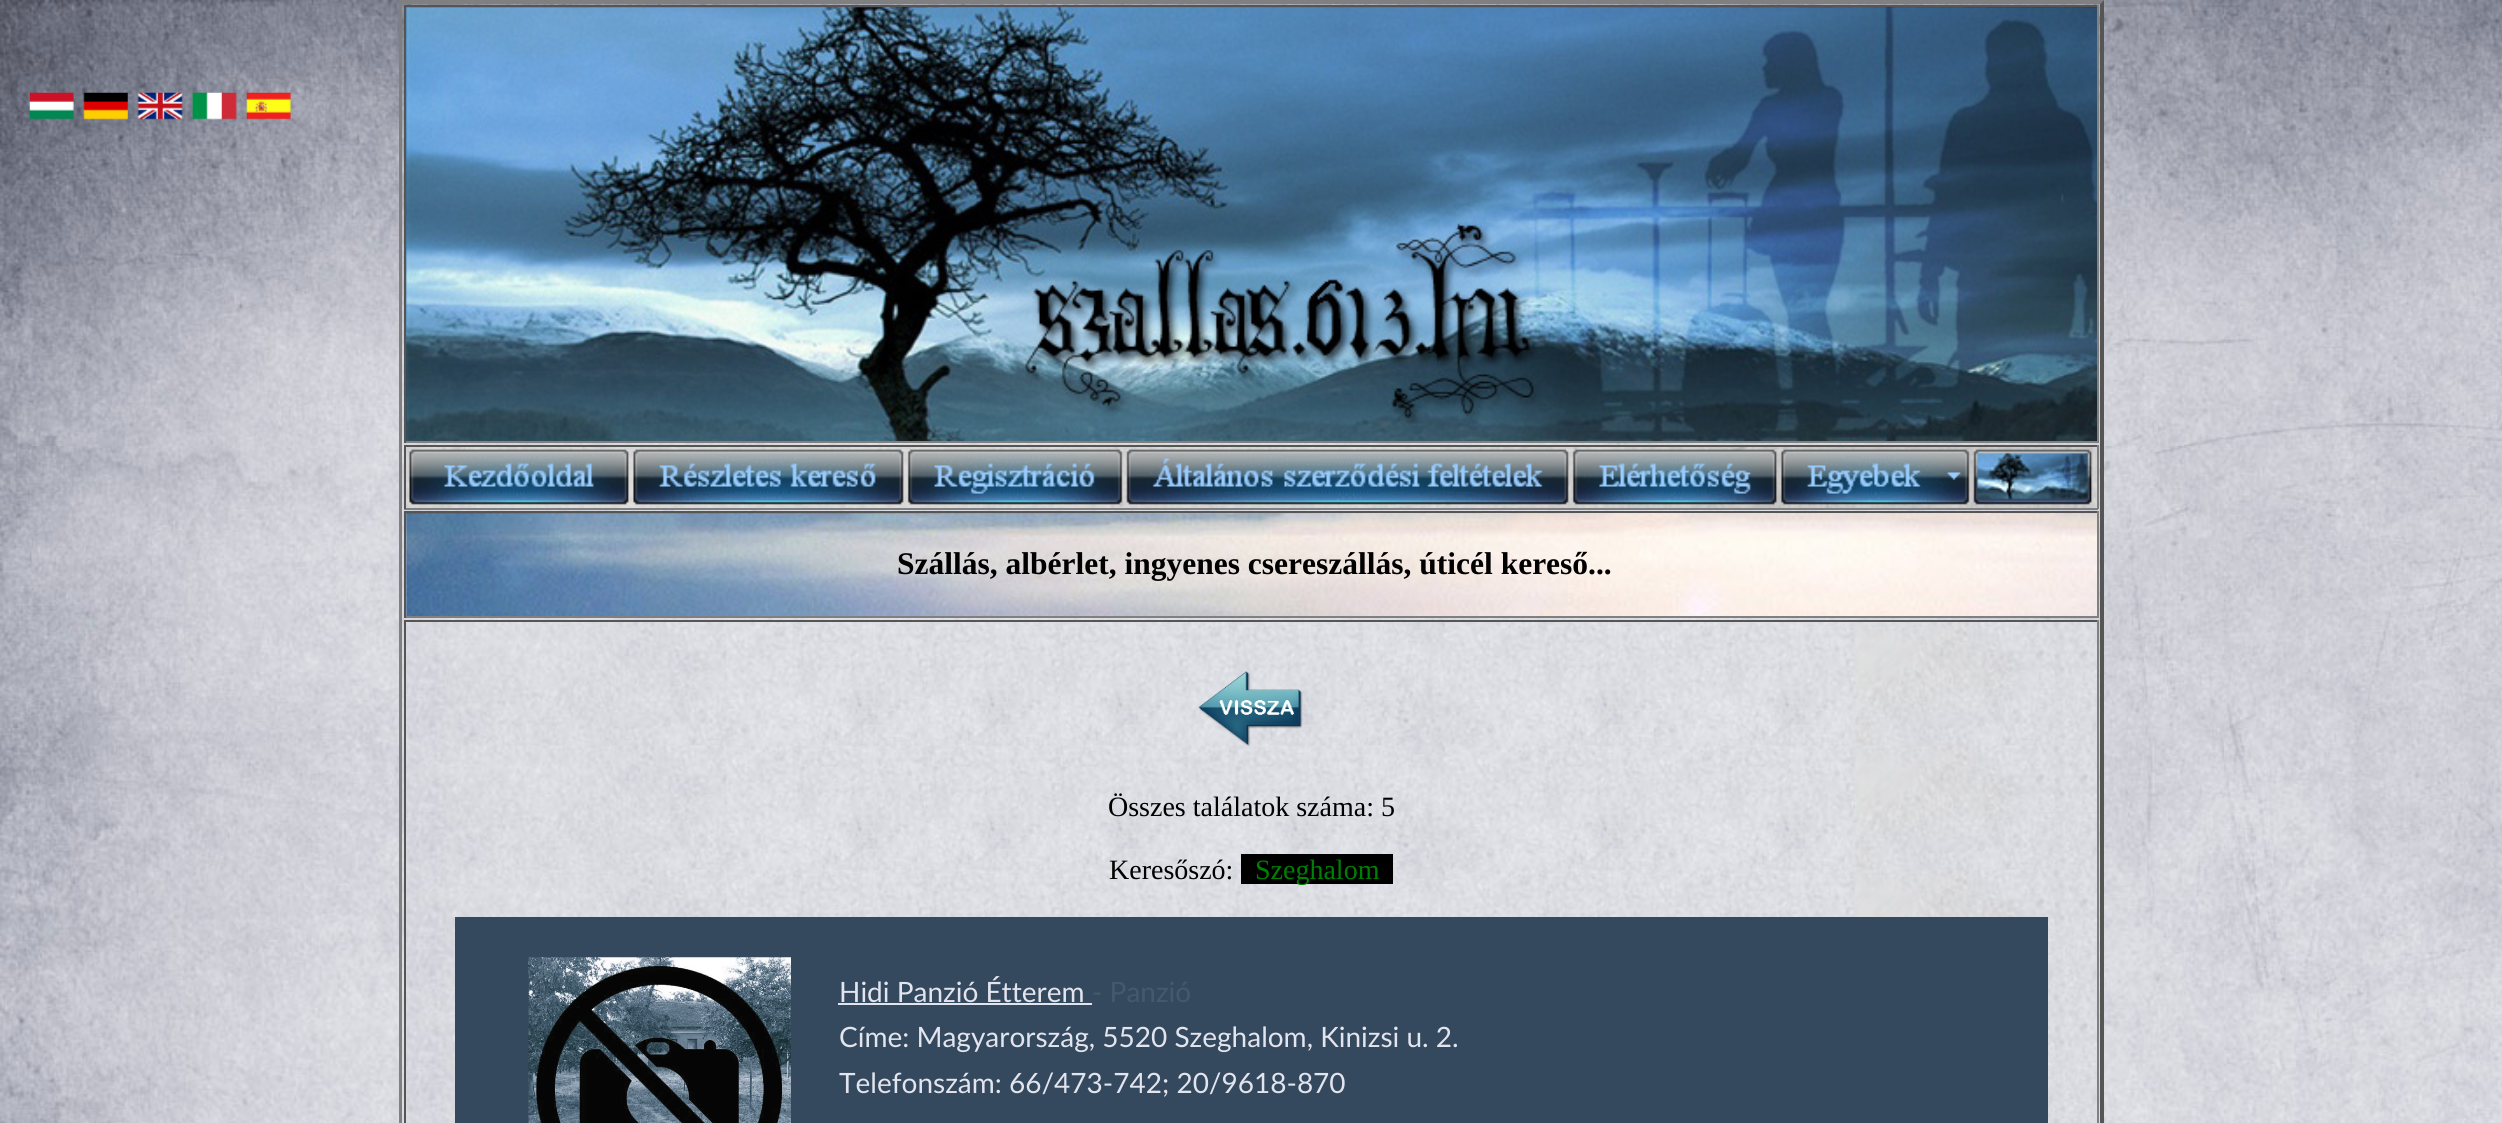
#include <cairo.h>
#include <math.h>
#include <stddef.h>


static void picture(cairo_t *cr, const char *path, double x, double y, double w, double h) {
    cairo_surface_t *image = cairo_image_surface_create_from_png(path);
    cairo_save(cr);
    cairo_set_source_surface(cr, image, x, y);
    cairo_rectangle(cr, x, y, w, h);
    cairo_fill(cr);
    cairo_restore(cr);
    cairo_surface_destroy(image);
}

int main(void) {
    cairo_surface_t *surface = cairo_image_surface_create(CAIRO_FORMAT_RGB24, 2502, 1123);
    cairo_t *cr = cairo_create(surface);
    cairo_font_options_t *options = cairo_font_options_create();
    cairo_font_options_set_hint_metrics(options, CAIRO_HINT_METRICS_OFF);
    cairo_font_options_set_hint_style(options, CAIRO_HINT_STYLE_NONE);
    cairo_set_font_options(cr, options);
    cairo_set_miter_limit(cr, 4);
    cairo_set_source_rgb(cr, 1, 1, 1);
    cairo_paint(cr);
    picture(cr, "img1.png", 0, 0, 2502, 1123);
    picture(cr, "img2.png", 29, 92, 45, 28);
    picture(cr, "img3.png", 83, 92, 45, 28);
    picture(cr, "img4.png", 137, 92, 46, 28);
    picture(cr, "img5.png", 191, 92, 46, 28);
    picture(cr, "img6.png", 246, 92, 45, 28);
    cairo_set_source_rgb(cr, 0.502, 0.502, 0.502);
    cairo_new_path(cr);
    cairo_move_to(cr, 399, 0);
    cairo_line_to(cr, 2104, 0);
    cairo_line_to(cr, 2100, 4);
    cairo_line_to(cr, 402, 4);
    cairo_close_path(cr);
    cairo_fill(cr);
    cairo_set_source_rgb(cr, 0.333, 0.333, 0.333);
    cairo_new_path(cr);
    cairo_move_to(cr, 2104, 0);
    cairo_line_to(cr, 2104, 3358);
    cairo_line_to(cr, 2100, 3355);
    cairo_line_to(cr, 2100, 4);
    cairo_close_path(cr);
    cairo_fill(cr);
    cairo_set_source_rgb(cr, 0.502, 0.502, 0.502);
    cairo_new_path(cr);
    cairo_move_to(cr, 399, 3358);
    cairo_line_to(cr, 399, 0);
    cairo_line_to(cr, 402, 4);
    cairo_line_to(cr, 402, 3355);
    cairo_close_path(cr);
    cairo_fill(cr);
    picture(cr, "img7.png", 406, 7, 1691, 434);
    cairo_set_source_rgb(cr, 0.333, 0.333, 0.333);
    cairo_rectangle(cr, 404, 5, 1694, 2);
    cairo_fill(cr);
    cairo_set_source_rgb(cr, 0.502, 0.502, 0.502);
    cairo_rectangle(cr, 2097, 5, 2, 438);
    cairo_fill(cr);
    cairo_rectangle(cr, 404, 441, 1694, 2);
    cairo_fill(cr);
    cairo_set_source_rgb(cr, 0.333, 0.333, 0.333);
    cairo_rectangle(cr, 404, 5, 2, 438);
    cairo_fill(cr);
    picture(cr, "img8.png", 404, 444, 1695, 66);
    cairo_rectangle(cr, 404, 445, 1694, 2);
    cairo_fill(cr);
    cairo_set_source_rgb(cr, 0.502, 0.502, 0.502);
    cairo_rectangle(cr, 2097, 445, 2, 64);
    cairo_fill(cr);
    cairo_rectangle(cr, 404, 508, 1694, 2);
    cairo_fill(cr);
    cairo_set_source_rgb(cr, 0.333, 0.333, 0.333);
    cairo_rectangle(cr, 404, 445, 2, 64);
    cairo_fill(cr);
    picture(cr, "img9.png", 409, 449, 220, 56);
    picture(cr, "img10.png", 633, 449, 271, 56);
    picture(cr, "img11.png", 907, 449, 216, 56);
    picture(cr, "img12.png", 1126, 449, 443, 56);
    picture(cr, "img13.png", 1572, 449, 205, 56);
    picture(cr, "img14.png", 1781, 449, 189, 56);
    picture(cr, "img15.png", 1973, 449, 119, 56);
    picture(cr, "img16.png", 406, 513, 1691, 103);
    cairo_rectangle(cr, 404, 511, 1694, 2);
    cairo_fill(cr);
    cairo_set_source_rgb(cr, 0.502, 0.502, 0.502);
    cairo_rectangle(cr, 2097, 511, 2, 107);
    cairo_fill(cr);
    cairo_rectangle(cr, 404, 616, 1694, 2);
    cairo_fill(cr);
    cairo_set_source_rgb(cr, 0.333, 0.333, 0.333);
    cairo_rectangle(cr, 404, 511, 2, 107);
    cairo_fill(cr);
    cairo_select_font_face(cr, "Liberation Serif", CAIRO_FONT_SLANT_NORMAL, CAIRO_FONT_WEIGHT_BOLD);
    cairo_set_font_size(cr, 31.5);
    cairo_set_source_rgb(cr, 0, 0, 0);
    cairo_move_to(cr, 897, 574);
    cairo_show_text(cr, "Szállás, albérlet, ingyenes csereszállás, úticél kereső...");
    picture(cr, "img17.png", 404, 619, 1695, 504);
    cairo_set_source_rgb(cr, 0.333, 0.333, 0.333);
    cairo_rectangle(cr, 404, 620, 1694, 2);
    cairo_fill(cr);
    cairo_set_source_rgb(cr, 0.502, 0.502, 0.502);
    cairo_rectangle(cr, 2097, 620, 2, 503);
    cairo_fill(cr);
    cairo_set_source_rgb(cr, 0.333, 0.333, 0.333);
    cairo_rectangle(cr, 404, 620, 2, 503);
    cairo_fill(cr);
    picture(cr, "img18.png", 1198, 671, 105, 76);
    cairo_select_font_face(cr, "Liberation Serif", CAIRO_FONT_SLANT_NORMAL, CAIRO_FONT_WEIGHT_NORMAL);
    cairo_set_font_size(cr, 28);
    cairo_set_source_rgb(cr, 0, 0, 0);
    cairo_move_to(cr, 1108, 816);
    cairo_show_text(cr, "Összes találatok száma: 5");
    cairo_move_to(cr, 1109, 879);
    cairo_show_text(cr, "Keresőszó:");
    cairo_rectangle(cr, 1241, 854, 152, 30);
    cairo_fill(cr);
    cairo_set_source_rgb(cr, 0, 0.502, 0);
    cairo_move_to(cr, 1255, 879);
    cairo_show_text(cr, "Szeghalom");
    cairo_set_source_rgb(cr, 0.204, 0.286, 0.369);
    cairo_rectangle(cr, 455, 917, 1593, 206);
    cairo_fill(cr);
    picture(cr, "img19.png", 528, 957, 263, 166);
    cairo_select_font_face(cr, "Lato", CAIRO_FONT_SLANT_NORMAL, CAIRO_FONT_WEIGHT_NORMAL);
    cairo_set_source_rgb(cr, 0.886, 0.894, 0.933);
    cairo_move_to(cr, 839, 1002);
    cairo_show_text(cr, "Hidi Panzió Étterem");
    cairo_rectangle(cr, 838, 1003, 254, 2);
    cairo_fill(cr);
    cairo_set_source_rgb(cr, 0.271, 0.349, 0.424);
    cairo_move_to(cr, 1092, 1002);
    cairo_show_text(cr, "- Panzió");
    cairo_set_source_rgb(cr, 0.886, 0.894, 0.933);
    cairo_move_to(cr, 839, 1047);
    cairo_show_text(cr, "Címe: Magyarország, 5520 Szeghalom, Kinizsi u. 2.");
    cairo_move_to(cr, 839, 1093);
    cairo_show_text(cr, "Telefonszám: 66/473-742; 20/9618-870");
    cairo_surface_write_to_png(surface, "page.png");
    cairo_font_options_destroy(options);
    cairo_destroy(cr);
    cairo_surface_destroy(surface);
    return 0;
}
